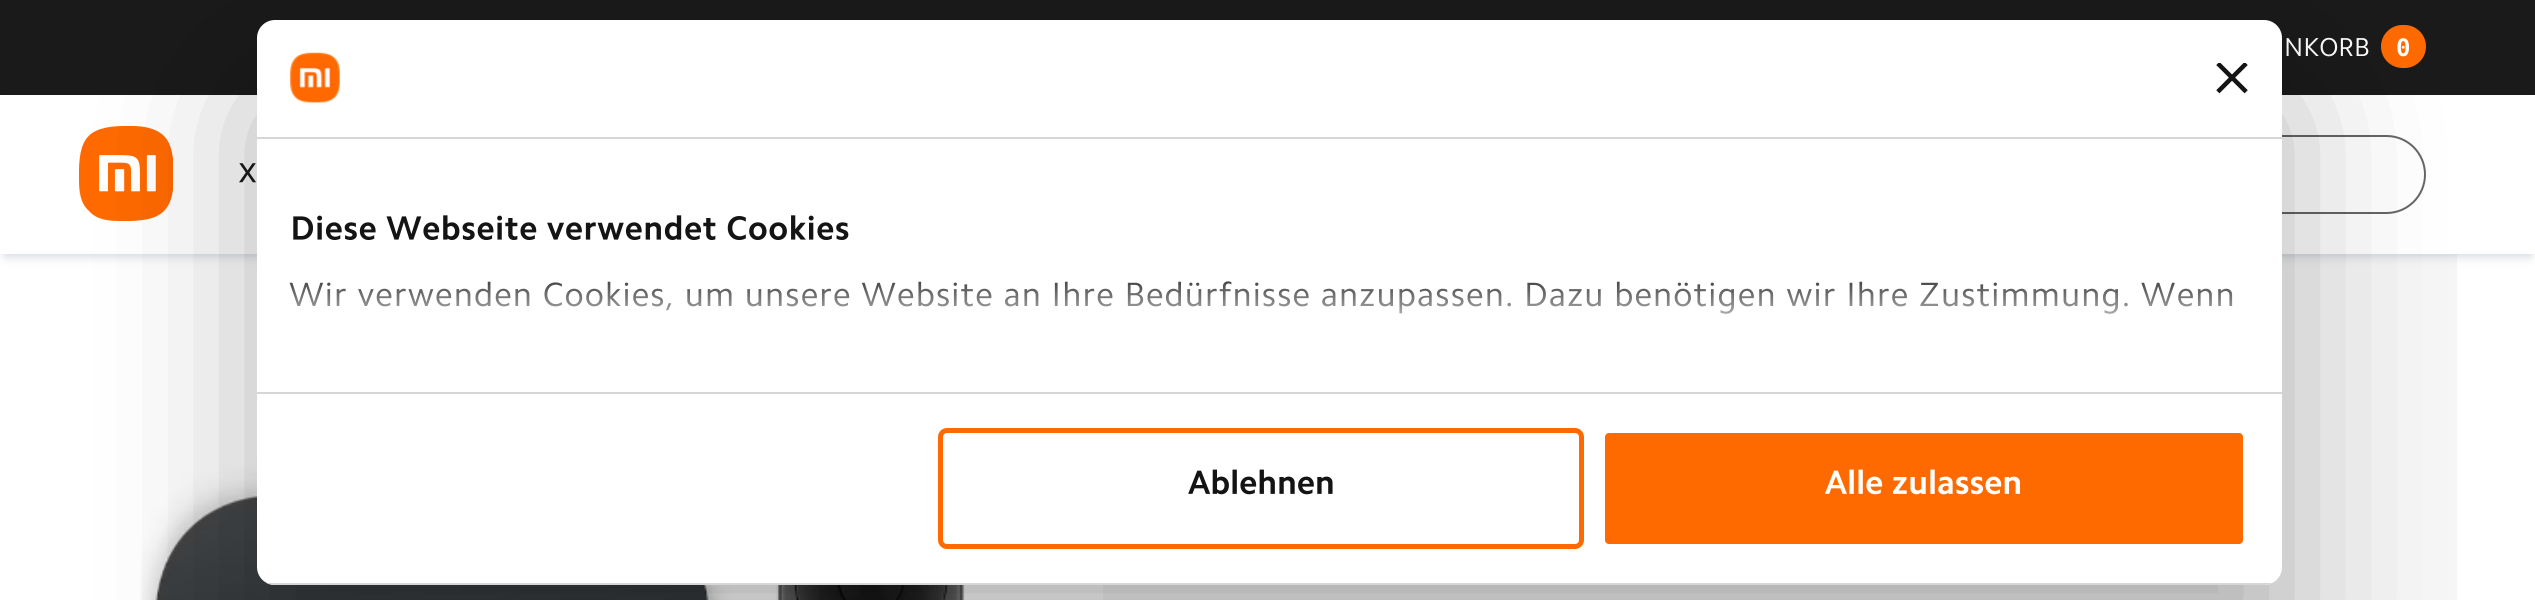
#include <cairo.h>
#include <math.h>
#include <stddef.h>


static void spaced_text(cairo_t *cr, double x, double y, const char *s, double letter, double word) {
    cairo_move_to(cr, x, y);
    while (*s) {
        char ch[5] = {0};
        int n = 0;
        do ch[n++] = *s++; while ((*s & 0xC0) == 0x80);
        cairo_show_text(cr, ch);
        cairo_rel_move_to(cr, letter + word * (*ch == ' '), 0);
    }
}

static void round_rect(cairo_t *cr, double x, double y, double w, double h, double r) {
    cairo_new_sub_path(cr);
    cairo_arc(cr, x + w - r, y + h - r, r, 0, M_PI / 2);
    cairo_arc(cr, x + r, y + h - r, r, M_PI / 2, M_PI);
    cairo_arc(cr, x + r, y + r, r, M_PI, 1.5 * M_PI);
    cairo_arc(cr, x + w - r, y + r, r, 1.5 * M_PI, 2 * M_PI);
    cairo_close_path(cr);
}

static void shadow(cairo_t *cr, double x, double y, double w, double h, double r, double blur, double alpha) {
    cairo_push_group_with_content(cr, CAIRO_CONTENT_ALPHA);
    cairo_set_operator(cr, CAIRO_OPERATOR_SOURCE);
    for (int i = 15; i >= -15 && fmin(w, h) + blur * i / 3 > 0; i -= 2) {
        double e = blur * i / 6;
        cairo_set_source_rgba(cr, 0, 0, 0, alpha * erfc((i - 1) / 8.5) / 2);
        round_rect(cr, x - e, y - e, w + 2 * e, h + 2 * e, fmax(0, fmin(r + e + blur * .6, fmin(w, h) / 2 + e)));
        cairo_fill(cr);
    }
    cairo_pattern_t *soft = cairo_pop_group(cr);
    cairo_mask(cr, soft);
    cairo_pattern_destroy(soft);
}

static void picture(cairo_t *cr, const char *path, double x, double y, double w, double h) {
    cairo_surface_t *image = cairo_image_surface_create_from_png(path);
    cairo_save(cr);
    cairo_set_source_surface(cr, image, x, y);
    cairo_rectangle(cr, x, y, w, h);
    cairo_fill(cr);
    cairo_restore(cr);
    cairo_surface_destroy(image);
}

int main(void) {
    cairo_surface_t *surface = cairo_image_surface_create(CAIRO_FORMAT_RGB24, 2535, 600);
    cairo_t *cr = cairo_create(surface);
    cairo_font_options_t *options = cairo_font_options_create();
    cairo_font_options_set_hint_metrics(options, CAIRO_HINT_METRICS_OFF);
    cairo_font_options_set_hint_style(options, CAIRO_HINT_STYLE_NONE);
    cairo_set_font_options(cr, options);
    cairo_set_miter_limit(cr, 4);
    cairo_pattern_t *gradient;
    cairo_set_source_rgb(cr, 1, 1, 1);
    cairo_paint(cr);
    cairo_set_source_rgb(cr, 0.961, 0.961, 0.961);
    cairo_rectangle(cr, 1103, 254, 1354, 346);
    cairo_fill(cr);
    cairo_set_source_rgb(cr, 0.118, 0.235, 0.353);
    shadow(cr, 5, 104, 2526, 153, 0, 5, 0.19);
    cairo_set_source_rgb(cr, 0.102, 0.102, 0.102);
    cairo_rectangle(cr, 0, 0, 2535, 95);
    cairo_fill(cr);
    cairo_select_font_face(cr, "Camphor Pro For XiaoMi", CAIRO_FONT_SLANT_NORMAL, CAIRO_FONT_WEIGHT_NORMAL);
    cairo_set_font_size(cr, 26);
    cairo_set_source_rgb(cr, 1, 1, 1);
    cairo_move_to(cr, 2284, 56);
    cairo_show_text(cr, "NKORB");
    cairo_set_source_rgb(cr, 1, 0.416, 0);
    round_rect(cr, 2382, 26, 43, 41, 20.5);
    cairo_fill_preserve(cr);
    cairo_stroke(cr);
    cairo_select_font_face(cr, "DejaVu Sans Mono", CAIRO_FONT_SLANT_NORMAL, CAIRO_FONT_WEIGHT_BOLD);
    cairo_set_font_size(cr, 24);
    cairo_set_source_rgb(cr, 1, 1, 1);
    cairo_move_to(cr, 2396, 56);
    cairo_show_text(cr, "0");
    cairo_rectangle(cr, 0, 96, 2535, 158);
    cairo_fill(cr);
    cairo_save(cr);
    cairo_rectangle(cr, 79, 126, 94, 97);
    cairo_clip(cr);
    cairo_set_source_rgb(cr, 1, 0.412, 0);
    cairo_set_fill_rule(cr, CAIRO_FILL_RULE_EVEN_ODD);
    cairo_new_path(cr);
    cairo_move_to(cr, 164, 136);
    cairo_curve_to(cr, 156, 128, 143, 126, 132, 126);
    cairo_curve_to(cr, 88, 125, 78, 136, 79, 179);
    cairo_curve_to(cr, 79, 191, 80, 203, 89, 211);
    cairo_curve_to(cr, 97, 220, 109, 221, 121, 221);
    cairo_curve_to(cr, 164, 222, 175, 211, 174, 168);
    cairo_curve_to(cr, 173, 157, 172, 144, 164, 136);
    cairo_close_path(cr);
    cairo_fill(cr);
    cairo_restore(cr);
    picture(cr, "img1.png", 99, 155, 57, 37);
    picture(cr, "img2.png", 239, 163, 17, 20);
    round_rect(cr, 1981, 136, 444, 77, 38.5);
    cairo_set_source_rgb(cr, 0.4, 0.4, 0.4);
    cairo_stroke(cr);
    picture(cr, "img3.png", 140, 370, 825, 230);
    cairo_set_source_rgb(cr, 0, 0, 0);
    shadow(cr, 257, 92, 2025, 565, 18, 76.5, 0.3);
    cairo_set_source_rgb(cr, 1, 1, 1);
    round_rect(cr, 257, 20, 2025, 565, 18);
    cairo_fill(cr);
    cairo_set_source_rgb(cr, 0.839, 0.839, 0.839);
    cairo_rectangle(cr, 257, 137, 2025, 2);
    cairo_fill(cr);
    picture(cr, "img4.png", 290, 52, 50, 51);
    picture(cr, "img5.png", 2216, 63, 32, 31);
    cairo_rectangle(cr, 257, 392, 2025, 2);
    cairo_fill(cr);
    picture(cr, "img6.png", 293, 215, 556, 25);
    cairo_select_font_face(cr, "Camphor Pro For XiaoMi", CAIRO_FONT_SLANT_NORMAL, CAIRO_FONT_WEIGHT_NORMAL);
    cairo_set_font_size(cr, 33.75);
    cairo_set_source_rgb(cr, 0.078, 0.078, 0.078);
    spaced_text(cr, 289, 306, "Wir verwenden Cookies, um unsere Website an Ihre Bedürfnisse anzupassen. Dazu benötigen wir Ihre Zustimmung. Wenn", 1.12, 0);
    gradient = cairo_pattern_create_linear(1254, 390, 1254, 264);
    cairo_pattern_add_color_stop_rgba(gradient, 0, 1, 1, 1, 1);
    cairo_pattern_add_color_stop_rgba(gradient, 0.5, 1, 1, 1, 0.8);
    cairo_pattern_add_color_stop_rgba(gradient, 1, 1, 1, 1, 0);
    cairo_set_source(cr, gradient);
    cairo_pattern_destroy(gradient);
    cairo_rectangle(cr, 290, 281, 1943, 33);
    cairo_fill(cr);
    cairo_save(cr);
    round_rect(cr, 257, 20, 2025, 565, 18);
    cairo_clip(cr);
    cairo_set_source_rgb(cr, 0.839, 0.839, 0.839);
    cairo_rectangle(cr, 267, 583, 2005, 2);
    cairo_fill(cr);
    cairo_restore(cr);
    round_rect(cr, 940.5, 430.5, 641, 116, 6.5);
    cairo_set_source_rgb(cr, 1, 0.416, 0);
    cairo_set_line_width(cr, 5);
    cairo_stroke(cr);
    picture(cr, "img7.png", 1188, 469, 145, 26);
    round_rect(cr, 1602.5, 430.5, 643, 116, 6.5);
    cairo_fill_preserve(cr);
    cairo_set_source_rgb(cr, 1, 1, 1);
    cairo_stroke(cr);
    picture(cr, "img8.png", 1825, 469, 195, 26);
    cairo_surface_write_to_png(surface, "page.png");
    cairo_font_options_destroy(options);
    cairo_destroy(cr);
    cairo_surface_destroy(surface);
    return 0;
}
